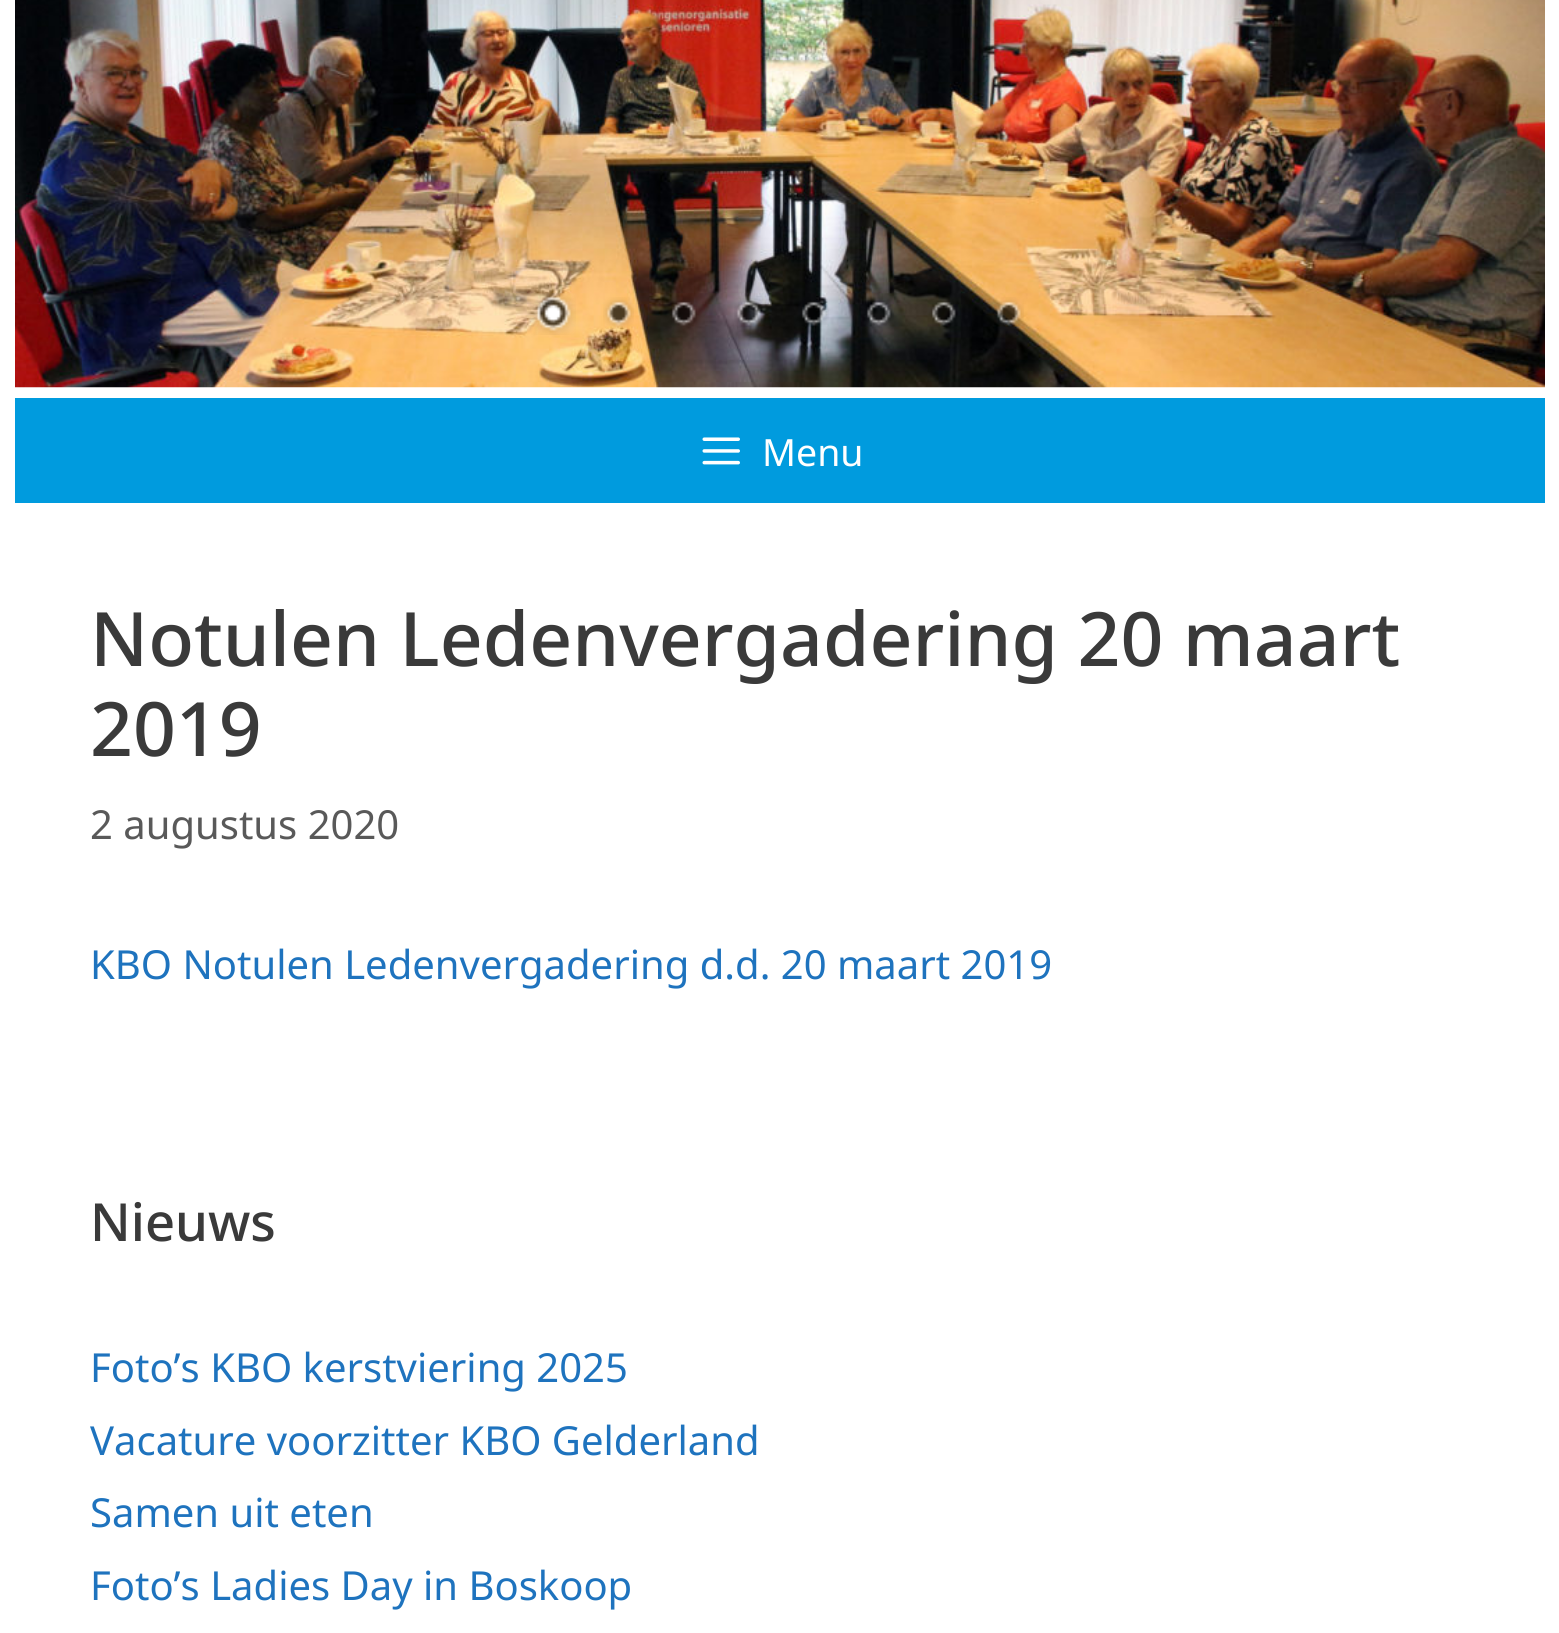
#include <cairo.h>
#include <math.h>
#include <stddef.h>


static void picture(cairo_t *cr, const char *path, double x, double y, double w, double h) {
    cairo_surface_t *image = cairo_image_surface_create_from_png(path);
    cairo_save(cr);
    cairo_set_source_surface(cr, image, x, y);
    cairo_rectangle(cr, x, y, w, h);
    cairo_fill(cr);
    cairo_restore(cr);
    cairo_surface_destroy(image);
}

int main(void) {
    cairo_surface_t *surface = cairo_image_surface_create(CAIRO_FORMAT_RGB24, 1559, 1633);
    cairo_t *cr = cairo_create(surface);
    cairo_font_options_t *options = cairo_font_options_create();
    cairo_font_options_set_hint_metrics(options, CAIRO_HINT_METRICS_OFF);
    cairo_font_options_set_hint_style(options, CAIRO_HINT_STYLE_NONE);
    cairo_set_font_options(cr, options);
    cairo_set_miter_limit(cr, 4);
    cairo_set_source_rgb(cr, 1, 1, 1);
    cairo_paint(cr);
    picture(cr, "img1.png", 15, 0, 1530, 388);
    picture(cr, "img2.png", 530, 290, 46, 45);
    picture(cr, "img3.png", 603, 297, 31, 32);
    picture(cr, "img4.png", 671, 301, 26, 25);
    picture(cr, "img5.png", 734, 298, 29, 29);
    picture(cr, "img6.png", 801, 301, 28, 26);
    picture(cr, "img7.png", 866, 300, 25, 26);
    picture(cr, "img8.png", 932, 301, 24, 25);
    picture(cr, "img9.png", 994, 297, 30, 29);
    cairo_set_source_rgb(cr, 0, 0.608, 0.871);
    cairo_rectangle(cr, 15, 398, 1530, 105);
    cairo_fill(cr);
    picture(cr, "img10.png", 702, 437, 38, 28);
    cairo_select_font_face(cr, "Noto Sans", CAIRO_FONT_SLANT_NORMAL, CAIRO_FONT_WEIGHT_NORMAL);
    cairo_set_font_size(cr, 37.5);
    cairo_set_source_rgb(cr, 1, 1, 1);
    cairo_move_to(cr, 762, 466);
    cairo_show_text(cr, "Menu");
    cairo_select_font_face(cr, "Noto Sans Medium", CAIRO_FONT_SLANT_NORMAL, CAIRO_FONT_WEIGHT_NORMAL);
    cairo_set_font_size(cr, 75);
    cairo_set_source_rgb(cr, 0.227, 0.227, 0.227);
    cairo_move_to(cr, 90, 666);
    cairo_show_text(cr, "Notulen Ledenvergadering 20 maart");
    cairo_move_to(cr, 90, 756);
    cairo_show_text(cr, "2019");
    cairo_select_font_face(cr, "Noto Sans", CAIRO_FONT_SLANT_NORMAL, CAIRO_FONT_WEIGHT_NORMAL);
    cairo_set_font_size(cr, 40);
    cairo_set_source_rgb(cr, 0.349, 0.349, 0.349);
    cairo_move_to(cr, 90, 839);
    cairo_show_text(cr, "2 augustus 2020");
    cairo_set_source_rgb(cr, 0.118, 0.451, 0.745);
    cairo_move_to(cr, 90, 979);
    cairo_show_text(cr, "KBO Notulen Ledenvergadering d.d. 20 maart 2019");
    cairo_select_font_face(cr, "Noto Sans Medium", CAIRO_FONT_SLANT_NORMAL, CAIRO_FONT_WEIGHT_NORMAL);
    cairo_set_font_size(cr, 52.5);
    cairo_set_source_rgb(cr, 0.227, 0.227, 0.227);
    cairo_move_to(cr, 90, 1241);
    cairo_show_text(cr, "Nieuws");
    cairo_select_font_face(cr, "Noto Sans", CAIRO_FONT_SLANT_NORMAL, CAIRO_FONT_WEIGHT_NORMAL);
    cairo_set_font_size(cr, 40);
    cairo_set_source_rgb(cr, 0.118, 0.451, 0.745);
    cairo_move_to(cr, 90, 1382);
    cairo_show_text(cr, "Foto’s KBO kerstviering 2025");
    cairo_move_to(cr, 90, 1455);
    cairo_show_text(cr, "Vacature voorzitter KBO Gelderland");
    cairo_move_to(cr, 90, 1527);
    cairo_show_text(cr, "Samen uit eten");
    cairo_move_to(cr, 90, 1600);
    cairo_show_text(cr, "Foto’s Ladies Day in Boskoop");
    cairo_surface_write_to_png(surface, "page.png");
    cairo_font_options_destroy(options);
    cairo_destroy(cr);
    cairo_surface_destroy(surface);
    return 0;
}
